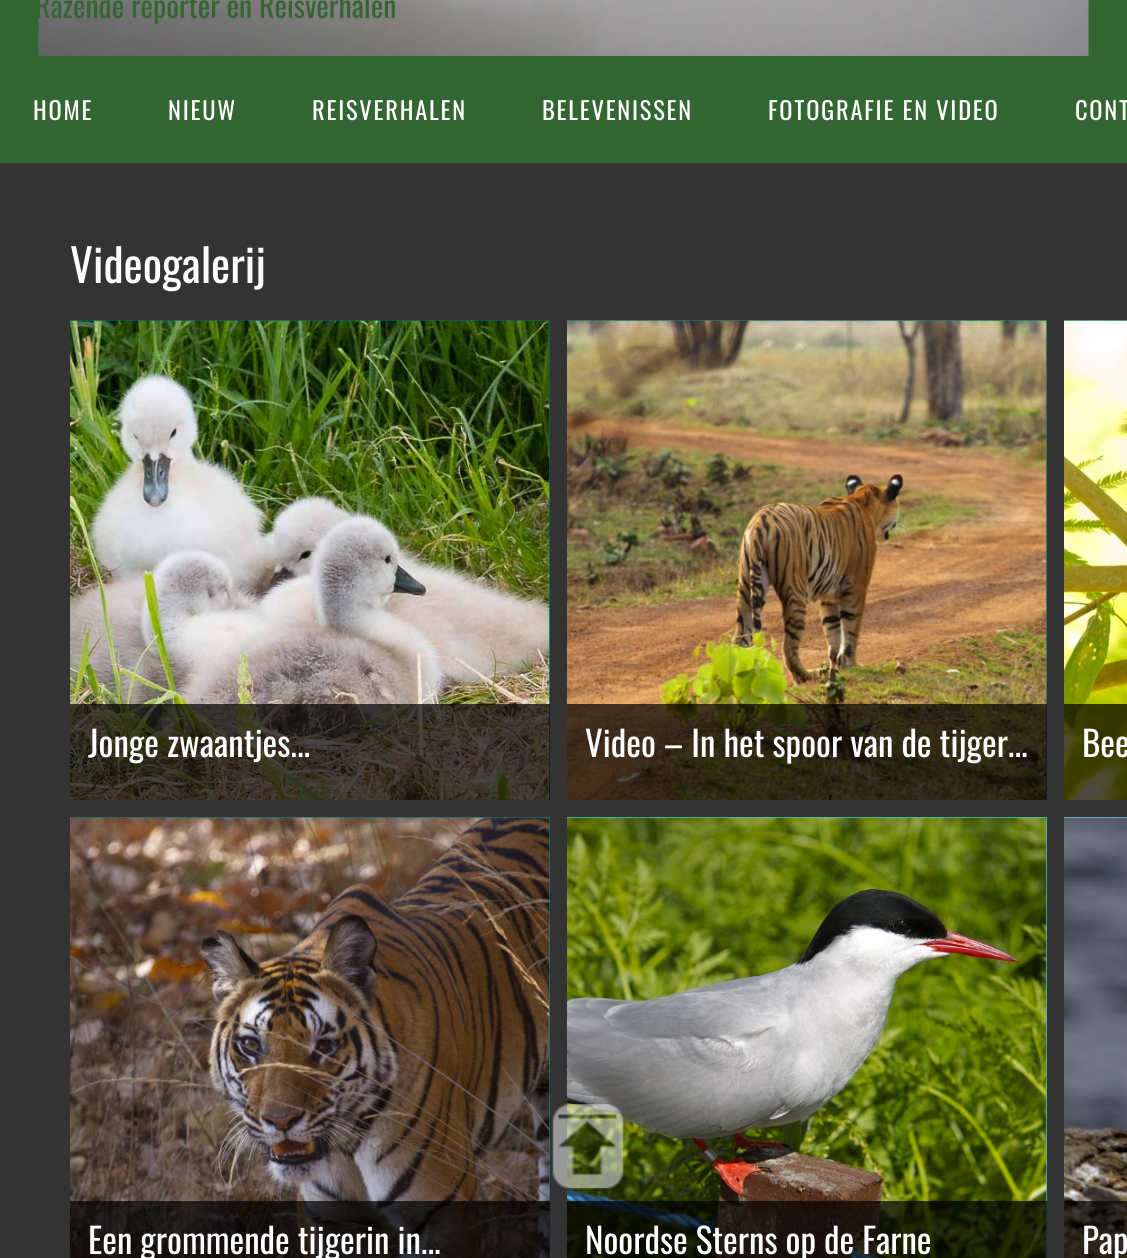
#include <cairo.h>
#include <math.h>
#include <stddef.h>


static void spaced_text(cairo_t *cr, double x, double y, const char *s, double letter, double word) {
    cairo_move_to(cr, x, y);
    while (*s) {
        char ch[5] = {0};
        int n = 0;
        do ch[n++] = *s++; while ((*s & 0xC0) == 0x80);
        cairo_show_text(cr, ch);
        cairo_rel_move_to(cr, letter + word * (*ch == ' '), 0);
    }
}

static void picture(cairo_t *cr, const char *path, double x, double y, double w, double h) {
    cairo_surface_t *image = cairo_image_surface_create_from_png(path);
    cairo_save(cr);
    cairo_set_source_surface(cr, image, x, y);
    cairo_rectangle(cr, x, y, w, h);
    cairo_fill(cr);
    cairo_restore(cr);
    cairo_surface_destroy(image);
}

int main(void) {
    cairo_surface_t *surface = cairo_image_surface_create(CAIRO_FORMAT_RGB24, 1127, 1258);
    cairo_t *cr = cairo_create(surface);
    cairo_font_options_t *options = cairo_font_options_create();
    cairo_font_options_set_hint_metrics(options, CAIRO_HINT_METRICS_OFF);
    cairo_font_options_set_hint_style(options, CAIRO_HINT_STYLE_NONE);
    cairo_set_font_options(cr, options);
    cairo_set_miter_limit(cr, 4);
    cairo_set_source_rgb(cr, 0.2, 0.4, 0.2);
    cairo_paint(cr);
    picture(cr, "img1.png", 38, 0, 1051, 56);
    cairo_select_font_face(cr, "Oswald", CAIRO_FONT_SLANT_NORMAL, CAIRO_FONT_WEIGHT_NORMAL);
    cairo_set_font_size(cr, 29.75);
    cairo_set_source_rgb(cr, 0.2, 0.4, 0.2);
    cairo_move_to(cr, 35, 18);
    cairo_show_text(cr, "Razende reporter en Reisverhalen");
    cairo_set_font_size(cr, 24.5);
    cairo_set_source_rgb(cr, 1, 1, 1);
    spaced_text(cr, 33, 120, "HOME", 1.75, 0);
    spaced_text(cr, 168, 120, "NIEUW", 1.75, 0);
    spaced_text(cr, 312, 120, "REISVERHALEN", 1.75, 0);
    spaced_text(cr, 542, 120, "BELEVENISSEN", 1.75, 0);
    spaced_text(cr, 768, 120, "FOTOGRAFIE EN VIDEO", 1.75, 0);
    spaced_text(cr, 1075, 120, "CONT", 1.75, 0);
    cairo_set_source_rgb(cr, 0.2, 0.2, 0.2);
    cairo_rectangle(cr, 0, 163, 1127, 1095);
    cairo_fill(cr);
    cairo_set_font_size(cr, 45.5);
    cairo_set_source_rgb(cr, 1, 1, 1);
    cairo_move_to(cr, 70, 283);
    cairo_show_text(cr, "Videogalerij");
    cairo_set_source_rgb(cr, 0, 0.388, 0.388);
    cairo_rectangle(cr, 70, 320, 480, 480);
    cairo_fill(cr);
    picture(cr, "img2.png", 70, 320, 480, 480);
    cairo_set_source_rgba(cr, 0, 0, 0, 0.7);
    cairo_rectangle(cr, 70, 704, 480, 96);
    cairo_fill(cr);
    cairo_set_font_size(cr, 35);
    cairo_set_source_rgb(cr, 1, 1, 1);
    cairo_move_to(cr, 88, 757);
    cairo_show_text(cr, "Jonge zwaantjes...");
    cairo_set_source_rgb(cr, 0.114, 0.451, 0.451);
    cairo_rectangle(cr, 567, 320, 480, 480);
    cairo_fill(cr);
    picture(cr, "img3.png", 567, 320, 480, 480);
    cairo_set_source_rgba(cr, 0, 0, 0, 0.7);
    cairo_rectangle(cr, 567, 704, 480, 96);
    cairo_fill(cr);
    cairo_set_source_rgb(cr, 1, 1, 1);
    cairo_move_to(cr, 585, 757);
    cairo_show_text(cr, "Video – In het spoor van de tijger...");
    cairo_set_source_rgb(cr, 0.114, 0.451, 0.451);
    cairo_rectangle(cr, 1064, 320, 63, 1);
    cairo_fill(cr);
    picture(cr, "img4.png", 1064, 320, 63, 480);
    cairo_set_source_rgba(cr, 0, 0, 0, 0.7);
    cairo_rectangle(cr, 1064, 704, 63, 96);
    cairo_fill(cr);
    cairo_set_source_rgb(cr, 1, 1, 1);
    cairo_move_to(cr, 1082, 757);
    cairo_show_text(cr, "Bee");
    cairo_set_source_rgb(cr, 0.114, 0.451, 0.451);
    cairo_rectangle(cr, 70, 817, 480, 441);
    cairo_fill(cr);
    picture(cr, "img5.png", 70, 817, 480, 441);
    cairo_set_source_rgba(cr, 0, 0, 0, 0.7);
    cairo_rectangle(cr, 70, 1201, 480, 57);
    cairo_fill(cr);
    cairo_set_source_rgb(cr, 1, 1, 1);
    cairo_move_to(cr, 88, 1254);
    cairo_show_text(cr, "Een grommende tijgerin in...");
    cairo_set_source_rgb(cr, 0.2, 0.8, 0.8);
    cairo_rectangle(cr, 567, 817, 480, 441);
    cairo_fill(cr);
    picture(cr, "img6.png", 567, 817, 480, 441);
    cairo_set_source_rgba(cr, 0, 0, 0, 0.7);
    cairo_rectangle(cr, 567, 1201, 480, 57);
    cairo_fill(cr);
    cairo_set_source_rgb(cr, 1, 1, 1);
    cairo_move_to(cr, 585, 1254);
    cairo_show_text(cr, "Noordse Sterns op de Farne");
    cairo_set_source_rgb(cr, 0.361, 0.8, 0.8);
    cairo_rectangle(cr, 1064, 817, 63, 1);
    cairo_fill(cr);
    picture(cr, "img7.png", 1064, 817, 63, 441);
    cairo_set_source_rgba(cr, 0, 0, 0, 0.7);
    cairo_rectangle(cr, 1064, 1201, 63, 57);
    cairo_fill(cr);
    cairo_set_source_rgb(cr, 1, 1, 1);
    cairo_move_to(cr, 1082, 1254);
    cairo_show_text(cr, "Pap");
    picture(cr, "img8.png", 552, 1104, 72, 85);
    cairo_surface_write_to_png(surface, "page.png");
    cairo_font_options_destroy(options);
    cairo_destroy(cr);
    cairo_surface_destroy(surface);
    return 0;
}
